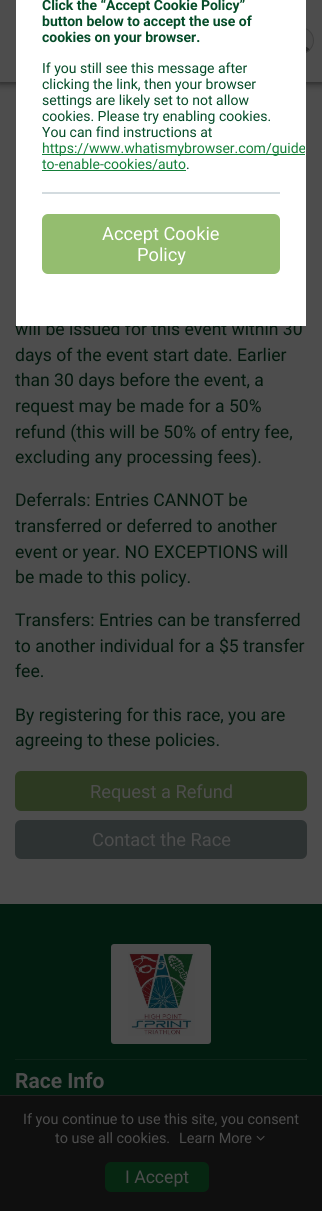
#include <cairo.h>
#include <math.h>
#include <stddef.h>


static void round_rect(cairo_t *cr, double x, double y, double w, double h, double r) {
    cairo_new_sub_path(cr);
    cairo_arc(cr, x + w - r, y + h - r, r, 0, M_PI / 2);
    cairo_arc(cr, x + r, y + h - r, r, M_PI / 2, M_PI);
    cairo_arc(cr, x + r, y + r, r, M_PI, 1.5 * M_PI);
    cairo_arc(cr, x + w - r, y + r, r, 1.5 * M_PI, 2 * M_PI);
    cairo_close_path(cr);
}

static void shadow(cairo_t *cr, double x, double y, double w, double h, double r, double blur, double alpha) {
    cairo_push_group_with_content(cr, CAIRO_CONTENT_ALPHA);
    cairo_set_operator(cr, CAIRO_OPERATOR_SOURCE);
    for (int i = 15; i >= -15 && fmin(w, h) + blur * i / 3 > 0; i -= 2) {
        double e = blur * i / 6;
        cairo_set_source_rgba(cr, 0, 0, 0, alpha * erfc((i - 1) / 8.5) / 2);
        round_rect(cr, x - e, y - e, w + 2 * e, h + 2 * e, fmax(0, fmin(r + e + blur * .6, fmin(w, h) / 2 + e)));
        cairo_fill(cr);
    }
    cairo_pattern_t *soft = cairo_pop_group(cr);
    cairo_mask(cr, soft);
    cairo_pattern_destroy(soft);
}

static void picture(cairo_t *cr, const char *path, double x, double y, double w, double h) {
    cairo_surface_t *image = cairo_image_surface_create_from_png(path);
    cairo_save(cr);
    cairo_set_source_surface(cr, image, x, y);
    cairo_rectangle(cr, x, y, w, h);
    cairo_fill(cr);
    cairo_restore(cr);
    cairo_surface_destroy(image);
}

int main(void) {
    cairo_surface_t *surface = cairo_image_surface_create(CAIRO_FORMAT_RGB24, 322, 1211);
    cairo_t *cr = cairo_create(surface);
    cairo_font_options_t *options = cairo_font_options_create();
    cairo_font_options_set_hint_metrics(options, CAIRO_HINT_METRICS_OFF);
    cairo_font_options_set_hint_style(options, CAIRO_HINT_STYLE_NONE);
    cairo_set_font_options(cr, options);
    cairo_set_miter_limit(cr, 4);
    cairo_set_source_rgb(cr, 0.302, 0.302, 0.302);
    cairo_paint(cr);
    cairo_set_source_rgb(cr, 0, 0, 0);
    shadow(cr, -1, -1, 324, 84, 0, 4, 0.6);
    cairo_set_source_rgb(cr, 0.302, 0.302, 0.302);
    cairo_rectangle(cr, 0, 0, 322, 82);
    cairo_fill(cr);
    picture(cr, "img1.png", 306, 28, 7, 25);
    cairo_arc(cr, 300.5, 40.5, 13, 0, 2 * M_PI);
    cairo_set_source_rgb(cr, 0.239, 0.239, 0.239);
    cairo_set_line_width(cr, 1);
    cairo_stroke(cr);
    cairo_select_font_face(cr, "Roboto", CAIRO_FONT_SLANT_NORMAL, CAIRO_FONT_WEIGHT_NORMAL);
    cairo_set_font_size(cr, 17.6);
    cairo_set_source_rgb(cr, 0.008, 0.09, 0.047);
    cairo_move_to(cr, 15, 335);
    cairo_show_text(cr, "will be issued for this event within 30");
    cairo_rectangle(cr, 16.5, -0.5, 289, 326);
    cairo_set_source_rgb(cr, 1, 1, 1);
    cairo_stroke(cr);
    cairo_rectangle(cr, 17, 0, 288, 325);
    cairo_fill(cr);
    cairo_select_font_face(cr, "Roboto", CAIRO_FONT_SLANT_NORMAL, CAIRO_FONT_WEIGHT_BOLD);
    cairo_set_font_size(cr, 14);
    cairo_set_source_rgb(cr, 0.02, 0.298, 0.161);
    cairo_move_to(cr, 42, 10);
    cairo_show_text(cr, "Click the “Accept Cookie Policy”");
    cairo_move_to(cr, 42, 26);
    cairo_show_text(cr, "button below to accept the use of");
    cairo_move_to(cr, 42, 42);
    cairo_show_text(cr, "cookies on your browser.");
    cairo_select_font_face(cr, "Roboto", CAIRO_FONT_SLANT_NORMAL, CAIRO_FONT_WEIGHT_NORMAL);
    cairo_move_to(cr, 42, 73);
    cairo_show_text(cr, "If you still see this message after");
    cairo_move_to(cr, 42, 89);
    cairo_show_text(cr, "clicking the link, then your browser");
    cairo_move_to(cr, 42, 105);
    cairo_show_text(cr, "settings are likely set to not allow");
    cairo_move_to(cr, 42, 121);
    cairo_show_text(cr, "cookies. Please try enabling cookies.");
    cairo_move_to(cr, 42, 137);
    cairo_show_text(cr, "You can find instructions at");
    cairo_set_source_rgb(cr, 0.082, 0.498, 0.224);
    cairo_rectangle(cr, 42, 154, 263, 1);
    cairo_fill(cr);
    cairo_save(cr);
    cairo_rectangle(cr, 17, 0, 288, 325);
    cairo_clip(cr);
    cairo_move_to(cr, 42, 153);
    cairo_show_text(cr, "https://www.whatismybrowser.com/guide");
    cairo_restore(cr);
    cairo_move_to(cr, 42, 169);
    cairo_show_text(cr, "to-enable-cookies/auto");
    cairo_rectangle(cr, 42, 170, 144, 1);
    cairo_fill(cr);
    cairo_set_source_rgb(cr, 0.02, 0.298, 0.161);
    cairo_move_to(cr, 186, 169);
    cairo_show_text(cr, ".");
    cairo_set_source_rgb(cr, 0.827, 0.859, 0.875);
    cairo_rectangle(cr, 42, 192, 238, 2);
    cairo_fill(cr);
    cairo_set_source_rgb(cr, 0.58, 0.741, 0.435);
    round_rect(cr, 42, 214, 238, 60, 6);
    cairo_fill(cr);
    cairo_set_font_size(cr, 18.25);
    cairo_set_source_rgb(cr, 1, 1, 1);
    cairo_move_to(cr, 102, 240);
    cairo_show_text(cr, "Accept Cookie");
    cairo_move_to(cr, 137, 261);
    cairo_show_text(cr, "Policy");
    cairo_set_font_size(cr, 17.6);
    cairo_set_source_rgb(cr, 0.008, 0.09, 0.047);
    cairo_move_to(cr, 15, 361);
    cairo_show_text(cr, "days of the event start date. Earlier");
    cairo_move_to(cr, 15, 386);
    cairo_show_text(cr, "than 30 days before the event, a");
    cairo_move_to(cr, 15, 412);
    cairo_show_text(cr, "request may be made for a 50%");
    cairo_move_to(cr, 15, 438);
    cairo_show_text(cr, "refund (this will be 50% of entry fee,");
    cairo_move_to(cr, 15, 463);
    cairo_show_text(cr, "excluding any processing fees).");
    cairo_move_to(cr, 15, 506);
    cairo_show_text(cr, "Deferrals: Entries CANNOT be");
    cairo_move_to(cr, 15, 532);
    cairo_show_text(cr, "transferred or deferred to another");
    cairo_move_to(cr, 15, 558);
    cairo_show_text(cr, "event or year. NO EXCEPTIONS will");
    cairo_move_to(cr, 15, 583);
    cairo_show_text(cr, "be made to this policy.");
    cairo_move_to(cr, 15, 626);
    cairo_show_text(cr, "Transfers: Entries can be transferred");
    cairo_move_to(cr, 15, 652);
    cairo_show_text(cr, "to another individual for a $5 transfer");
    cairo_move_to(cr, 15, 677);
    cairo_show_text(cr, "fee.");
    cairo_move_to(cr, 15, 721);
    cairo_show_text(cr, "By registering for this race, you are");
    cairo_move_to(cr, 15, 746);
    cairo_show_text(cr, "agreeing to these policies.");
    cairo_set_source_rgb(cr, 0.173, 0.224, 0.129);
    round_rect(cr, 15, 771, 292, 40, 6);
    cairo_fill(cr);
    cairo_set_font_size(cr, 18.25);
    cairo_set_source_rgb(cr, 0.302, 0.302, 0.302);
    cairo_move_to(cr, 90, 798);
    cairo_show_text(cr, "Request a Refund");
    cairo_set_source_rgb(cr, 0.176, 0.196, 0.196);
    round_rect(cr, 15, 820, 292, 39, 6);
    cairo_fill(cr);
    cairo_set_source_rgb(cr, 0.302, 0.302, 0.302);
    cairo_move_to(cr, 92, 846);
    cairo_show_text(cr, "Contact the Race");
    cairo_set_source_rgb(cr, 0.008, 0.106, 0.059);
    cairo_rectangle(cr, 0, 904, 322, 191);
    cairo_fill(cr);
    cairo_set_source_rgb(cr, 0.302, 0.302, 0.302);
    round_rect(cr, 111, 944, 100, 100, 3);
    cairo_fill(cr);
    picture(cr, "img2.png", 128, 952, 67, 84);
    cairo_set_source_rgb(cr, 0.055, 0.133, 0.094);
    cairo_rectangle(cr, 15, 1059, 292, 1);
    cairo_fill(cr);
    cairo_select_font_face(cr, "Roboto", CAIRO_FONT_SLANT_NORMAL, CAIRO_FONT_WEIGHT_BOLD);
    cairo_set_font_size(cr, 21);
    cairo_set_source_rgb(cr, 0.302, 0.302, 0.302);
    cairo_move_to(cr, 15, 1088);
    cairo_show_text(cr, "Race Info");
    cairo_set_source_rgb(cr, 0.059, 0.059, 0.059);
    cairo_rectangle(cr, 0, 1096, 322, 115);
    cairo_fill(cr);
    cairo_set_source_rgb(cr, 0.122, 0.122, 0.122);
    cairo_rectangle(cr, 0, 1095, 322, 1);
    cairo_fill(cr);
    cairo_select_font_face(cr, "Roboto", CAIRO_FONT_SLANT_NORMAL, CAIRO_FONT_WEIGHT_NORMAL);
    cairo_set_font_size(cr, 14.4);
    cairo_set_source_rgb(cr, 0.302, 0.302, 0.302);
    cairo_move_to(cr, 23, 1124);
    cairo_show_text(cr, "If you continue to use this site, you consent");
    cairo_move_to(cr, 55, 1143);
    cairo_show_text(cr, "to use all cookies.");
    cairo_move_to(cr, 179, 1143);
    cairo_show_text(cr, "Learn More");
    picture(cr, "img3.png", 256, 1135, 9, 6);
    cairo_set_source_rgb(cr, 0.024, 0.149, 0.067);
    round_rect(cr, 105, 1162, 104, 30, 6);
    cairo_fill(cr);
    cairo_set_font_size(cr, 17.6);
    cairo_set_source_rgb(cr, 0.302, 0.302, 0.302);
    cairo_move_to(cr, 125, 1183);
    cairo_show_text(cr, "I Accept");
    cairo_surface_write_to_png(surface, "page.png");
    cairo_font_options_destroy(options);
    cairo_destroy(cr);
    cairo_surface_destroy(surface);
    return 0;
}
